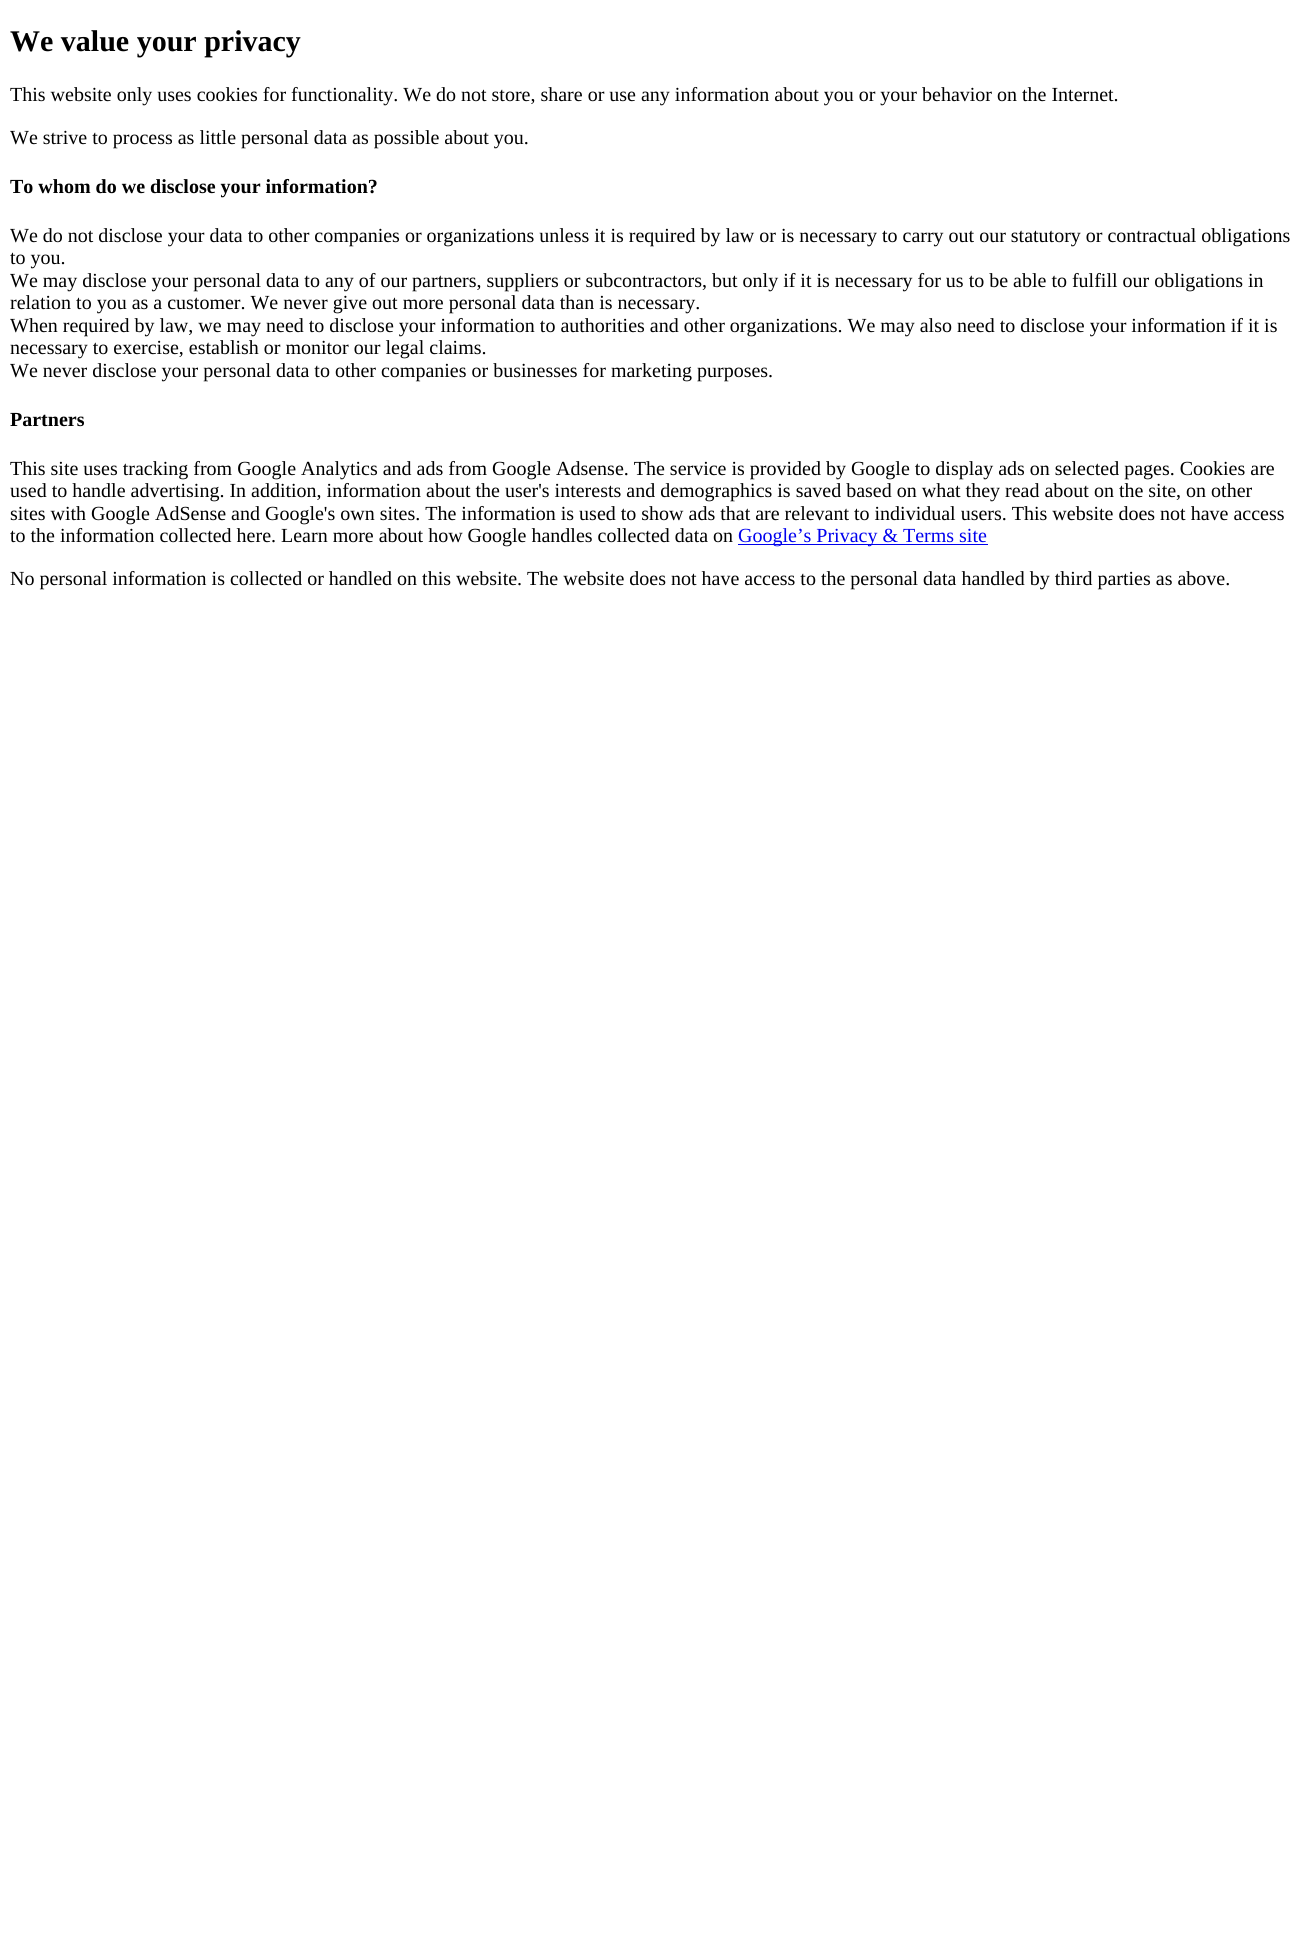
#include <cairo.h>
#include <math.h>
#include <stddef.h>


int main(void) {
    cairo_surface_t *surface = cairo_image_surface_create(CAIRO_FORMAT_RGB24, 1301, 1957);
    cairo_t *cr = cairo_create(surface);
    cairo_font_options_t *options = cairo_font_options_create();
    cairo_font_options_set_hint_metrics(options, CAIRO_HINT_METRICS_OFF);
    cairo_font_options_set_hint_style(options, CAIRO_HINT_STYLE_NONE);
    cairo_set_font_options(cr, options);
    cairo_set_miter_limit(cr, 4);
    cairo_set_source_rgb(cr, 1, 1, 1);
    cairo_paint(cr);
    cairo_select_font_face(cr, "Liberation Serif", CAIRO_FONT_SLANT_NORMAL, CAIRO_FONT_WEIGHT_BOLD);
    cairo_set_font_size(cr, 30);
    cairo_set_source_rgb(cr, 0, 0, 0);
    cairo_move_to(cr, 10, 51);
    cairo_show_text(cr, "We value your privacy");
    cairo_select_font_face(cr, "Liberation Serif", CAIRO_FONT_SLANT_NORMAL, CAIRO_FONT_WEIGHT_NORMAL);
    cairo_set_font_size(cr, 20);
    cairo_move_to(cr, 10, 101);
    cairo_show_text(cr, "This website only uses cookies for functionality. We do not store, share or use any information about you or your behavior on the Internet.");
    cairo_move_to(cr, 10, 144);
    cairo_show_text(cr, "We strive to process as little personal data as possible about you.");
    cairo_select_font_face(cr, "Liberation Serif", CAIRO_FONT_SLANT_NORMAL, CAIRO_FONT_WEIGHT_BOLD);
    cairo_move_to(cr, 10, 193);
    cairo_show_text(cr, "To whom do we disclose your information?");
    cairo_select_font_face(cr, "Liberation Serif", CAIRO_FONT_SLANT_NORMAL, CAIRO_FONT_WEIGHT_NORMAL);
    cairo_move_to(cr, 10, 242);
    cairo_show_text(cr, "We do not disclose your data to other companies or organizations unless it is required by law or is necessary to carry out our statutory or contractual obligations");
    cairo_move_to(cr, 10, 264);
    cairo_show_text(cr, "to you.");
    cairo_move_to(cr, 10, 287);
    cairo_show_text(cr, "We may disclose your personal data to any of our partners, suppliers or subcontractors, but only if it is necessary for us to be able to fulfill our obligations in");
    cairo_move_to(cr, 10, 309);
    cairo_show_text(cr, "relation to you as a customer. We never give out more personal data than is necessary.");
    cairo_move_to(cr, 10, 332);
    cairo_show_text(cr, "When required by law, we may need to disclose your information to authorities and other organizations. We may also need to disclose your information if it is");
    cairo_move_to(cr, 10, 354);
    cairo_show_text(cr, "necessary to exercise, establish or monitor our legal claims.");
    cairo_move_to(cr, 10, 377);
    cairo_show_text(cr, "We never disclose your personal data to other companies or businesses for marketing purposes.");
    cairo_select_font_face(cr, "Liberation Serif", CAIRO_FONT_SLANT_NORMAL, CAIRO_FONT_WEIGHT_BOLD);
    cairo_move_to(cr, 10, 426);
    cairo_show_text(cr, "Partners");
    cairo_select_font_face(cr, "Liberation Serif", CAIRO_FONT_SLANT_NORMAL, CAIRO_FONT_WEIGHT_NORMAL);
    cairo_move_to(cr, 10, 475);
    cairo_show_text(cr, "This site uses tracking from Google Analytics and ads from Google Adsense. The service is provided by Google to display ads on selected pages. Cookies are");
    cairo_move_to(cr, 10, 497);
    cairo_show_text(cr, "used to handle advertising. In addition, information about the user's interests and demographics is saved based on what they read about on the site, on other");
    cairo_move_to(cr, 10, 520);
    cairo_show_text(cr, "sites with Google AdSense and Google's own sites. The information is used to show ads that are relevant to individual users. This website does not have access");
    cairo_move_to(cr, 10, 542);
    cairo_show_text(cr, "to the information collected here. Learn more about how Google handles collected data on");
    cairo_set_source_rgb(cr, 0, 0, 0.933);
    cairo_rectangle(cr, 738, 544, 250, 1);
    cairo_fill(cr);
    cairo_move_to(cr, 738, 542);
    cairo_show_text(cr, "Google’s Privacy & Terms site");
    cairo_set_source_rgb(cr, 0, 0, 0);
    cairo_move_to(cr, 10, 585);
    cairo_show_text(cr, "No personal information is collected or handled on this website. The website does not have access to the personal data handled by third parties as above.");
    cairo_surface_write_to_png(surface, "page.png");
    cairo_font_options_destroy(options);
    cairo_destroy(cr);
    cairo_surface_destroy(surface);
    return 0;
}
